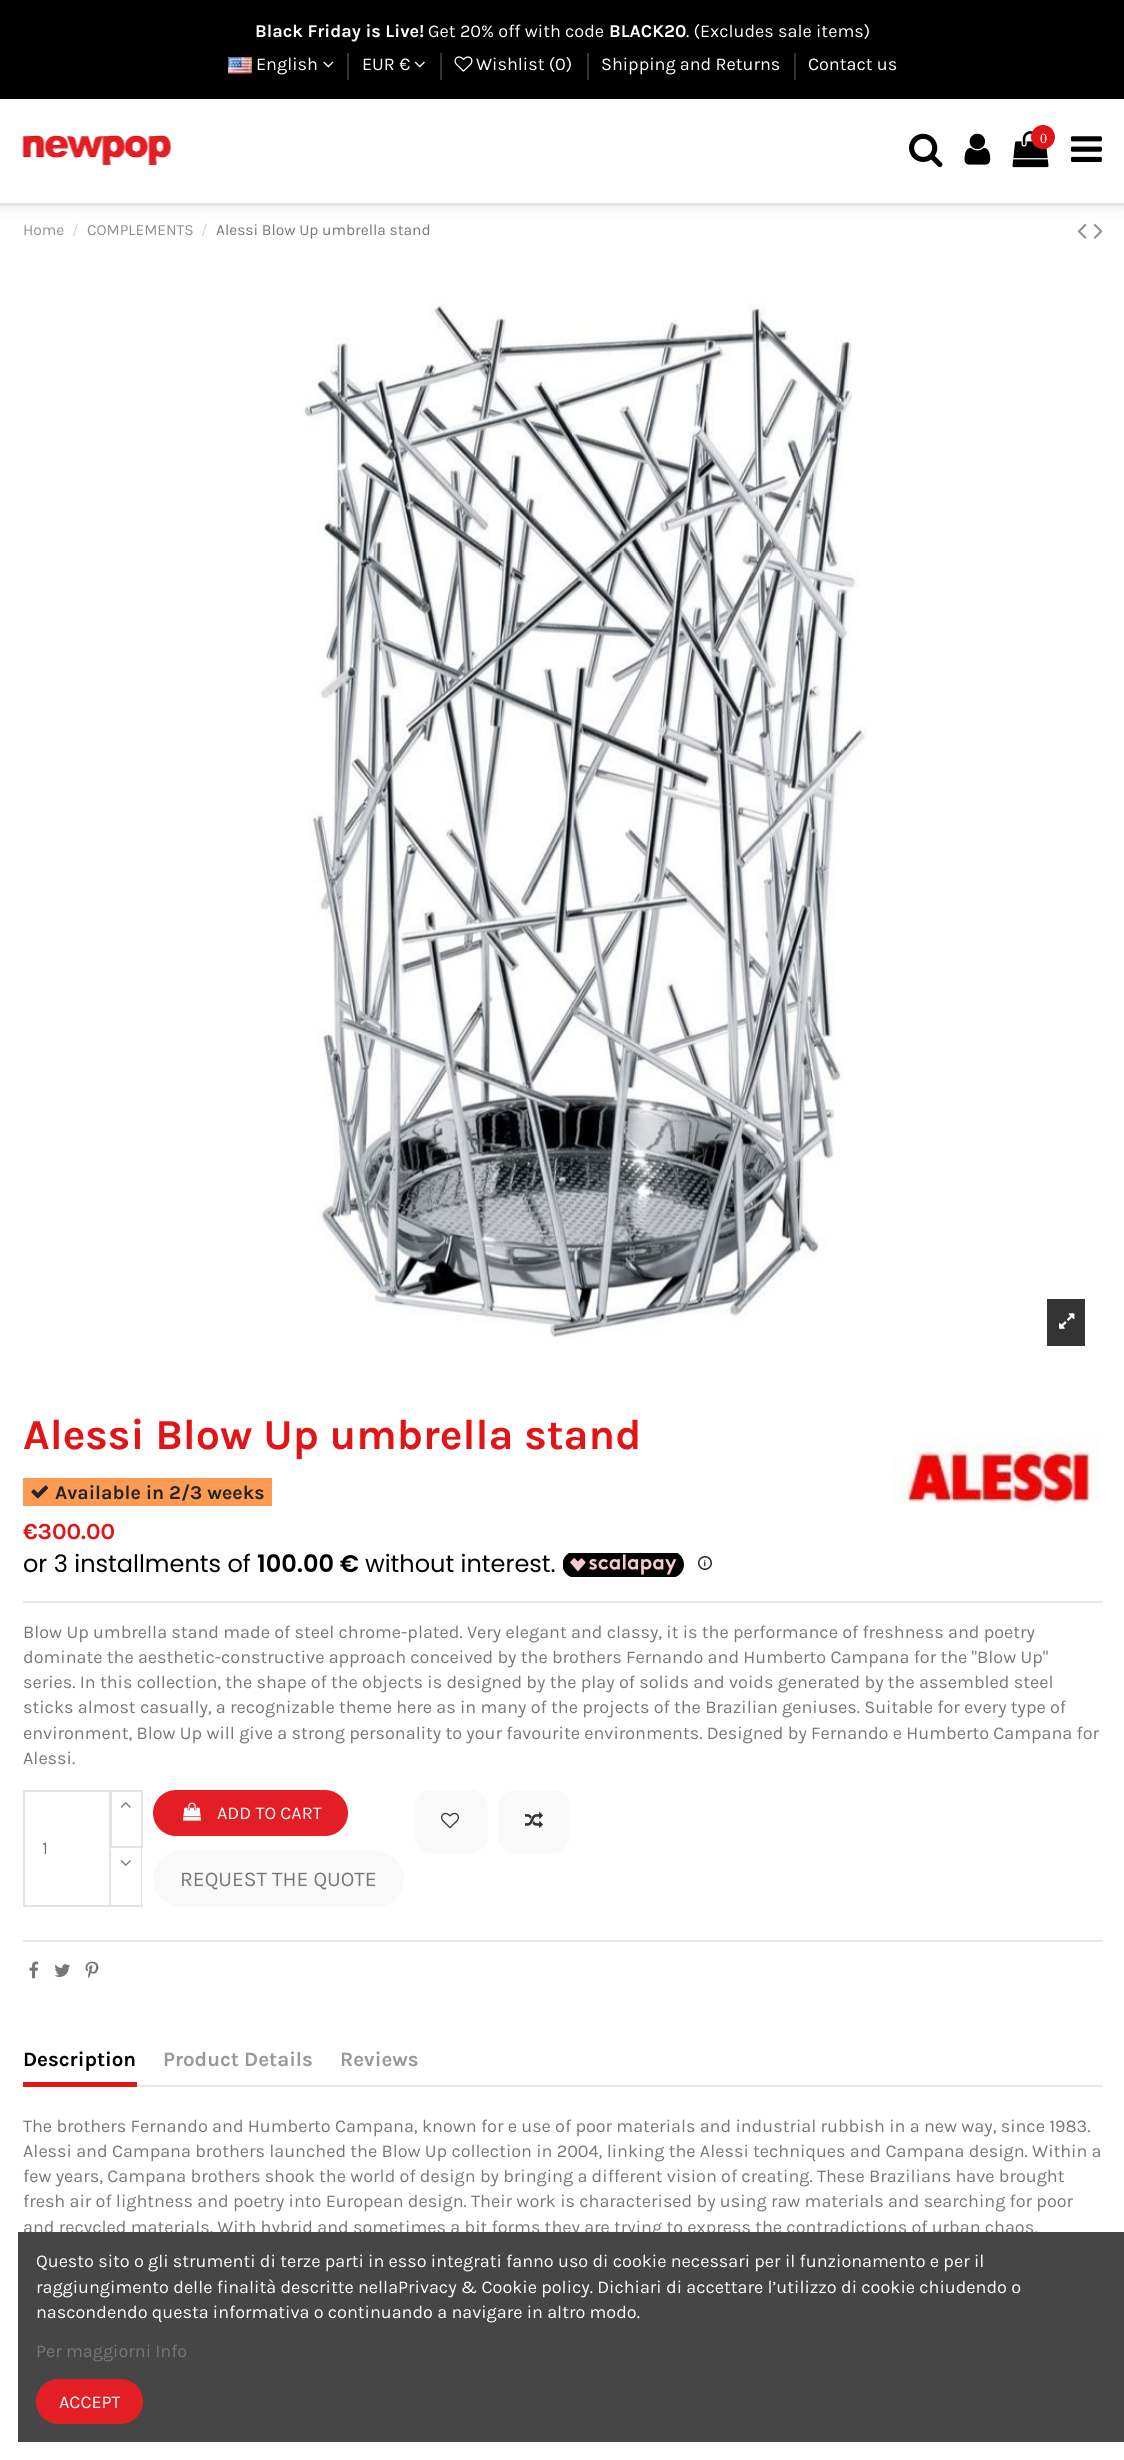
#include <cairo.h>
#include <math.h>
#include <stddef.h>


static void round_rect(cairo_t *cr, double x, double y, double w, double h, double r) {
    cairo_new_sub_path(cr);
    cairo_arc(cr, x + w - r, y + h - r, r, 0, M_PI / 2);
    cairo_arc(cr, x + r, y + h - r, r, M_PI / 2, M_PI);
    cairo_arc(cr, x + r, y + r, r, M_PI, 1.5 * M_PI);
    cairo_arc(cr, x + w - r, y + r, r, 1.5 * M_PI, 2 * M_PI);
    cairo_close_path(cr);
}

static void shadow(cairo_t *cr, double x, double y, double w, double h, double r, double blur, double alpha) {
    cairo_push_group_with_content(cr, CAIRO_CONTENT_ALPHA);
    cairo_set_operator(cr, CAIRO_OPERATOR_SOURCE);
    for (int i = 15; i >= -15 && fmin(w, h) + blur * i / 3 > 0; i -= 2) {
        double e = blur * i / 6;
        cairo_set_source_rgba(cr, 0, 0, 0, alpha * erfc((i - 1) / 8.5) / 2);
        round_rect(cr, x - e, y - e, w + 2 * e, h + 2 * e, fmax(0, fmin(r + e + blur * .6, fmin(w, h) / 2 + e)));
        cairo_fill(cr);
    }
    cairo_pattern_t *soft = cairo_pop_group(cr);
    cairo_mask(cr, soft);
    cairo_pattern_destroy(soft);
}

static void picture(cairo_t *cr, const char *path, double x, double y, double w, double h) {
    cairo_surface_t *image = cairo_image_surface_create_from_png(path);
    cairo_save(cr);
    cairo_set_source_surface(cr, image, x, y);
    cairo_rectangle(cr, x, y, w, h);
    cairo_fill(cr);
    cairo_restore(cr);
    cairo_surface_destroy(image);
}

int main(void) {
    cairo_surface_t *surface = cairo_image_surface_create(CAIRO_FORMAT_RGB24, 1124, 2460);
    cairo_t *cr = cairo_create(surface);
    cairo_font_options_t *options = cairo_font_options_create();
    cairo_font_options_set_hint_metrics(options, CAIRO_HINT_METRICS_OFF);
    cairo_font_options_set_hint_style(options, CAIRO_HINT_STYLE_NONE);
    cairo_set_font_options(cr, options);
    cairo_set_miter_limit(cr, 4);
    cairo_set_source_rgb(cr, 1, 1, 1);
    cairo_paint(cr);
    picture(cr, "img10.png", 1077, 223, 10, 16);
    picture(cr, "img11.png", 1093, 223, 10, 16);
    cairo_set_source_rgb(cr, 0.239, 0.224, 0.224);
    shadow(cr, 0, -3, 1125, 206, 0, 8, 0.17);
    cairo_set_source_rgb(cr, 1, 1, 1);
    cairo_rectangle(cr, 0, 99, 1124, 104);
    cairo_fill(cr);
    cairo_set_source_rgb(cr, 0.89, 0.89, 0.89);
    cairo_rectangle(cr, 0, 203, 1124, 3);
    cairo_fill(cr);
    cairo_set_source_rgb(cr, 0, 0, 0);
    cairo_rectangle(cr, 0, 0, 1124, 99);
    cairo_fill(cr);
    cairo_select_font_face(cr, "Karla", CAIRO_FONT_SLANT_NORMAL, CAIRO_FONT_WEIGHT_BOLD);
    cairo_set_font_size(cr, 18);
    cairo_set_source_rgb(cr, 1, 1, 1);
    cairo_move_to(cr, 255, 37);
    cairo_show_text(cr, "Black Friday is Live!");
    cairo_select_font_face(cr, "Karla", CAIRO_FONT_SLANT_NORMAL, CAIRO_FONT_WEIGHT_NORMAL);
    cairo_move_to(cr, 428, 37);
    cairo_show_text(cr, "Get 20% off with code");
    cairo_select_font_face(cr, "Karla", CAIRO_FONT_SLANT_NORMAL, CAIRO_FONT_WEIGHT_BOLD);
    cairo_move_to(cr, 609, 37);
    cairo_show_text(cr, "BLACK20");
    cairo_select_font_face(cr, "Karla", CAIRO_FONT_SLANT_NORMAL, CAIRO_FONT_WEIGHT_NORMAL);
    cairo_move_to(cr, 686, 37);
    cairo_show_text(cr, ". (Excludes sale items)");
    picture(cr, "img1.png", 228, 57, 24, 17);
    cairo_move_to(cr, 256, 70);
    cairo_show_text(cr, "English");
    picture(cr, "img2.png", 323, 61, 11, 7);
    cairo_set_source_rgb(cr, 0.2, 0.2, 0.2);
    cairo_rectangle(cr, 347, 53, 2, 27);
    cairo_fill(cr);
    cairo_set_source_rgb(cr, 1, 1, 1);
    cairo_move_to(cr, 362, 70);
    cairo_show_text(cr, "EUR €");
    picture(cr, "img3.png", 414, 61, 11, 7);
    cairo_set_source_rgb(cr, 0.2, 0.2, 0.2);
    cairo_rectangle(cr, 440, 53, 2, 27);
    cairo_fill(cr);
    picture(cr, "img4.png", 454, 56, 19, 16);
    cairo_set_source_rgb(cr, 1, 1, 1);
    cairo_move_to(cr, 476, 70);
    cairo_show_text(cr, "Wishlist (0)");
    cairo_set_source_rgb(cr, 0.2, 0.2, 0.2);
    cairo_rectangle(cr, 587, 53, 2, 27);
    cairo_fill(cr);
    cairo_set_source_rgb(cr, 1, 1, 1);
    cairo_move_to(cr, 601, 70);
    cairo_show_text(cr, "Shipping and Returns");
    cairo_set_source_rgb(cr, 0.2, 0.2, 0.2);
    cairo_rectangle(cr, 794, 53, 2, 27);
    cairo_fill(cr);
    cairo_set_source_rgb(cr, 1, 1, 1);
    cairo_move_to(cr, 808, 70);
    cairo_show_text(cr, "Contact us");
    picture(cr, "img5.png", 22, 135, 150, 30);
    picture(cr, "img6.png", 909, 133, 34, 35);
    picture(cr, "img7.png", 964, 133, 27, 32);
    picture(cr, "img8.png", 1012, 131, 37, 37);
    cairo_set_source_rgb(cr, 0.882, 0.082, 0.09);
    cairo_arc(cr, 1043, 137, 12, 0, 2 * M_PI);
    cairo_fill(cr);
    cairo_select_font_face(cr, "Liberation Serif", CAIRO_FONT_SLANT_NORMAL, CAIRO_FONT_WEIGHT_NORMAL);
    cairo_set_font_size(cr, 14);
    cairo_set_source_rgb(cr, 1, 1, 1);
    cairo_move_to(cr, 1040, 143);
    cairo_show_text(cr, "0");
    picture(cr, "img9.png", 1071, 136, 31, 26);
    cairo_select_font_face(cr, "Karla", CAIRO_FONT_SLANT_NORMAL, CAIRO_FONT_WEIGHT_NORMAL);
    cairo_set_font_size(cr, 15.5);
    cairo_set_source_rgb(cr, 0.561, 0.561, 0.561);
    cairo_move_to(cr, 23, 235);
    cairo_show_text(cr, "Home");
    cairo_set_source_rgb(cr, 0.824, 0.824, 0.824);
    cairo_move_to(cr, 72, 235);
    cairo_show_text(cr, "/");
    cairo_set_source_rgb(cr, 0.561, 0.561, 0.561);
    cairo_move_to(cr, 87, 235);
    cairo_show_text(cr, "COMPLEMENTS");
    cairo_set_source_rgb(cr, 0.824, 0.824, 0.824);
    cairo_move_to(cr, 201, 235);
    cairo_show_text(cr, "/");
    cairo_set_source_rgb(cr, 0.467, 0.467, 0.467);
    cairo_move_to(cr, 216, 235);
    cairo_show_text(cr, "Alessi Blow Up umbrella stand");
    picture(cr, "img12.png", 299, 303, 569, 1036);
    cairo_set_source_rgb(cr, 0.2, 0.2, 0.2);
    cairo_rectangle(cr, 1047, 1299, 38, 47);
    cairo_fill(cr);
    picture(cr, "img13.png", 1059, 1313, 16, 16);
    cairo_set_source_rgb(cr, 0.91, 0.91, 0.91);
    cairo_rectangle(cr, 23, 1601, 1080, 2);
    cairo_fill(cr);
    cairo_select_font_face(cr, "Karla", CAIRO_FONT_SLANT_NORMAL, CAIRO_FONT_WEIGHT_BOLD);
    cairo_set_font_size(cr, 42.7);
    cairo_set_source_rgb(cr, 0.882, 0.082, 0.09);
    cairo_move_to(cr, 23, 1449);
    cairo_show_text(cr, "Alessi Blow Up umbrella stand");
    picture(cr, "img14.png", 892, 1433, 208, 77);
    cairo_set_source_rgb(cr, 1, 0.604, 0.322);
    cairo_rectangle(cr, 23, 1478, 249, 28);
    cairo_fill(cr);
    picture(cr, "img15.png", 31, 1485, 18, 14);
    cairo_set_font_size(cr, 19.5);
    cairo_set_source_rgb(cr, 0.129, 0.145, 0.161);
    cairo_move_to(cr, 55, 1499);
    cairo_show_text(cr, "Available in 2/3 weeks");
    cairo_set_font_size(cr, 23);
    cairo_set_source_rgb(cr, 0.882, 0.082, 0.09);
    cairo_move_to(cr, 23, 1539);
    cairo_show_text(cr, "€300.00");
    cairo_select_font_face(cr, "Poppins", CAIRO_FONT_SLANT_NORMAL, CAIRO_FONT_WEIGHT_NORMAL);
    cairo_set_font_size(cr, 24);
    cairo_set_source_rgb(cr, 0, 0, 0);
    cairo_move_to(cr, 23, 1572);
    cairo_show_text(cr, "or 3 installments of");
    cairo_select_font_face(cr, "Poppins SemiBold", CAIRO_FONT_SLANT_NORMAL, CAIRO_FONT_WEIGHT_NORMAL);
    cairo_move_to(cr, 257, 1572);
    cairo_show_text(cr, "100.00 €");
    cairo_select_font_face(cr, "Poppins", CAIRO_FONT_SLANT_NORMAL, CAIRO_FONT_WEIGHT_NORMAL);
    cairo_move_to(cr, 365, 1572);
    cairo_show_text(cr, "without interest.");
    picture(cr, "img16.png", 563, 1553, 121, 24);
    picture(cr, "img17.png", 698, 1556, 14, 14);
    cairo_select_font_face(cr, "Karla", CAIRO_FONT_SLANT_NORMAL, CAIRO_FONT_WEIGHT_NORMAL);
    cairo_set_font_size(cr, 18);
    cairo_set_source_rgb(cr, 0.467, 0.467, 0.467);
    cairo_move_to(cr, 23, 1638);
    cairo_show_text(cr, "Blow Up umbrella stand made of steel chrome-plated. Very elegant and classy, it is the performance of freshness and poetry");
    cairo_move_to(cr, 23, 1663);
    cairo_show_text(cr, "dominate the aesthetic-constructive approach conceived by the brothers Fernando and Humberto Campana for the \"Blow Up\"");
    cairo_move_to(cr, 23, 1688);
    cairo_show_text(cr, "series. In this collection, the shape of the objects is designed by the play of solids and voids generated by the assembled steel");
    cairo_move_to(cr, 23, 1713);
    cairo_show_text(cr, "sticks almost casually, a recognizable theme here as in many of the projects of the Brazilian geniuses. Suitable for every type of");
    cairo_move_to(cr, 23, 1739);
    cairo_show_text(cr, "environment, Blow Up will give a strong personality to your favourite environments. Designed by Fernando e Humberto Campana for");
    cairo_move_to(cr, 23, 1764);
    cairo_show_text(cr, "Alessi.");
    cairo_rectangle(cr, 24, 1791, 86, 115);
    cairo_set_source_rgb(cr, 0.89, 0.89, 0.89);
    cairo_stroke(cr);
    cairo_set_source_rgb(cr, 0.467, 0.467, 0.467);
    cairo_move_to(cr, 42, 1854);
    cairo_show_text(cr, "1");
    cairo_rectangle(cr, 111, 1791, 31, 56);
    cairo_set_source_rgb(cr, 0.89, 0.89, 0.89);
    cairo_stroke(cr);
    picture(cr, "img18.png", 120, 1802, 11, 6);
    cairo_set_source_rgb(cr, 1, 1, 1);
    cairo_rectangle(cr, 110, 1848, 1, 57);
    cairo_fill(cr);
    cairo_set_source_rgb(cr, 0.89, 0.89, 0.89);
    cairo_new_path(cr);
    cairo_move_to(cr, 142, 1848);
    cairo_line_to(cr, 142, 1906);
    cairo_line_to(cr, 141, 1905);
    cairo_line_to(cr, 141, 1850);
    cairo_close_path(cr);
    cairo_fill(cr);
    cairo_rectangle(cr, 110, 1905, 33, 2);
    cairo_fill(cr);
    cairo_new_path(cr);
    cairo_move_to(cr, 110, 1906);
    cairo_line_to(cr, 110, 1848);
    cairo_line_to(cr, 111, 1850);
    cairo_line_to(cr, 111, 1905);
    cairo_close_path(cr);
    cairo_fill(cr);
    picture(cr, "img19.png", 120, 1860, 11, 6);
    cairo_set_source_rgb(cr, 0.89, 0.118, 0.141);
    round_rect(cr, 153, 1790, 195, 46, 23);
    cairo_fill(cr);
    picture(cr, "img20.png", 183, 1802, 18, 19);
    cairo_set_source_rgb(cr, 1, 1, 1);
    cairo_move_to(cr, 217, 1819);
    cairo_show_text(cr, "ADD TO CART");
    cairo_set_source_rgb(cr, 0.973, 0.973, 0.973);
    round_rect(cr, 153, 1851, 251, 56, 28);
    cairo_fill(cr);
    cairo_set_font_size(cr, 21);
    cairo_set_source_rgb(cr, 0.467, 0.467, 0.467);
    cairo_move_to(cr, 180, 1886);
    cairo_show_text(cr, "REQUEST THE QUOTE");
    cairo_set_source_rgb(cr, 0.973, 0.973, 0.973);
    round_rect(cr, 414, 1790, 74, 63, 18);
    cairo_fill(cr);
    picture(cr, "img21.png", 441, 1812, 18, 17);
    round_rect(cr, 498, 1790, 72, 63, 18);
    cairo_fill(cr);
    picture(cr, "img22.png", 525, 1811, 18, 17);
    cairo_set_source_rgb(cr, 0.91, 0.91, 0.91);
    cairo_rectangle(cr, 23, 1940, 1080, 2);
    cairo_fill(cr);
    picture(cr, "img23.png", 29, 1961, 10, 18);
    picture(cr, "img24.png", 54, 1964, 17, 13);
    picture(cr, "img25.png", 85, 1961, 14, 18);
    cairo_rectangle(cr, 137, 2085, 966, 2);
    cairo_fill(cr);
    cairo_set_source_rgb(cr, 0.882, 0.082, 0.09);
    cairo_rectangle(cr, 23, 2082, 114, 5);
    cairo_fill(cr);
    cairo_select_font_face(cr, "Karla", CAIRO_FONT_SLANT_NORMAL, CAIRO_FONT_WEIGHT_BOLD);
    cairo_set_font_size(cr, 20.5);
    cairo_set_source_rgb(cr, 0, 0, 0);
    cairo_move_to(cr, 23, 2066);
    cairo_show_text(cr, "Description");
    cairo_set_source_rgb(cr, 0.6, 0.6, 0.6);
    cairo_move_to(cr, 163, 2066);
    cairo_show_text(cr, "Product Details");
    cairo_move_to(cr, 340, 2066);
    cairo_show_text(cr, "Reviews");
    cairo_select_font_face(cr, "Karla", CAIRO_FONT_SLANT_NORMAL, CAIRO_FONT_WEIGHT_NORMAL);
    cairo_set_font_size(cr, 18);
    cairo_set_source_rgb(cr, 0.467, 0.467, 0.467);
    cairo_move_to(cr, 23, 2132);
    cairo_show_text(cr, "The brothers Fernando and Humberto Campana, known for e use of poor materials and industrial rubbish in a new way, since 1983.");
    cairo_move_to(cr, 23, 2157);
    cairo_show_text(cr, "Alessi and Campana brothers launched the Blow Up collection in 2004, linking the Alessi techniques and Campana design. Within a");
    cairo_move_to(cr, 23, 2182);
    cairo_show_text(cr, "few years, Campana brothers shook the world of design by bringing a different vision of creating. These Brazilians have brought");
    cairo_move_to(cr, 23, 2207);
    cairo_show_text(cr, "fresh air of lightness and poetry into European design. Their work is characterised by using raw materials and searching for poor");
    cairo_move_to(cr, 23, 2233);
    cairo_show_text(cr, "and recycled materials. With hybrid and sometimes a bit forms they are trying to express the contradictions of urban chaos,");
    cairo_set_source_rgb(cr, 0.275, 0.275, 0.275);
    cairo_rectangle(cr, 18, 2232, 1106, 210);
    cairo_fill(cr);
    cairo_set_source_rgb(cr, 1, 1, 1);
    cairo_move_to(cr, 36, 2267);
    cairo_show_text(cr, "Questo sito o gli strumenti di terze parti in esso integrati fanno uso di cookie necessari per il funzionamento e per il");
    cairo_move_to(cr, 36, 2293);
    cairo_show_text(cr, "raggiungimento delle finalità descritte nellaPrivacy & Cookie policy. Dichiari di accettare l’utilizzo di cookie chiudendo o");
    cairo_move_to(cr, 36, 2318);
    cairo_show_text(cr, "nascondendo questa informativa o continuando a navigare in altro modo.");
    cairo_set_source_rgb(cr, 0.467, 0.467, 0.467);
    cairo_move_to(cr, 36, 2357);
    cairo_show_text(cr, "Per maggiorni Info");
    cairo_set_source_rgb(cr, 0.89, 0.118, 0.141);
    round_rect(cr, 36, 2379, 107, 45, 22.5);
    cairo_fill(cr);
    cairo_set_source_rgb(cr, 1, 1, 1);
    cairo_move_to(cr, 59, 2408);
    cairo_show_text(cr, "ACCEPT");
    cairo_surface_write_to_png(surface, "page.png");
    cairo_font_options_destroy(options);
    cairo_destroy(cr);
    cairo_surface_destroy(surface);
    return 0;
}
